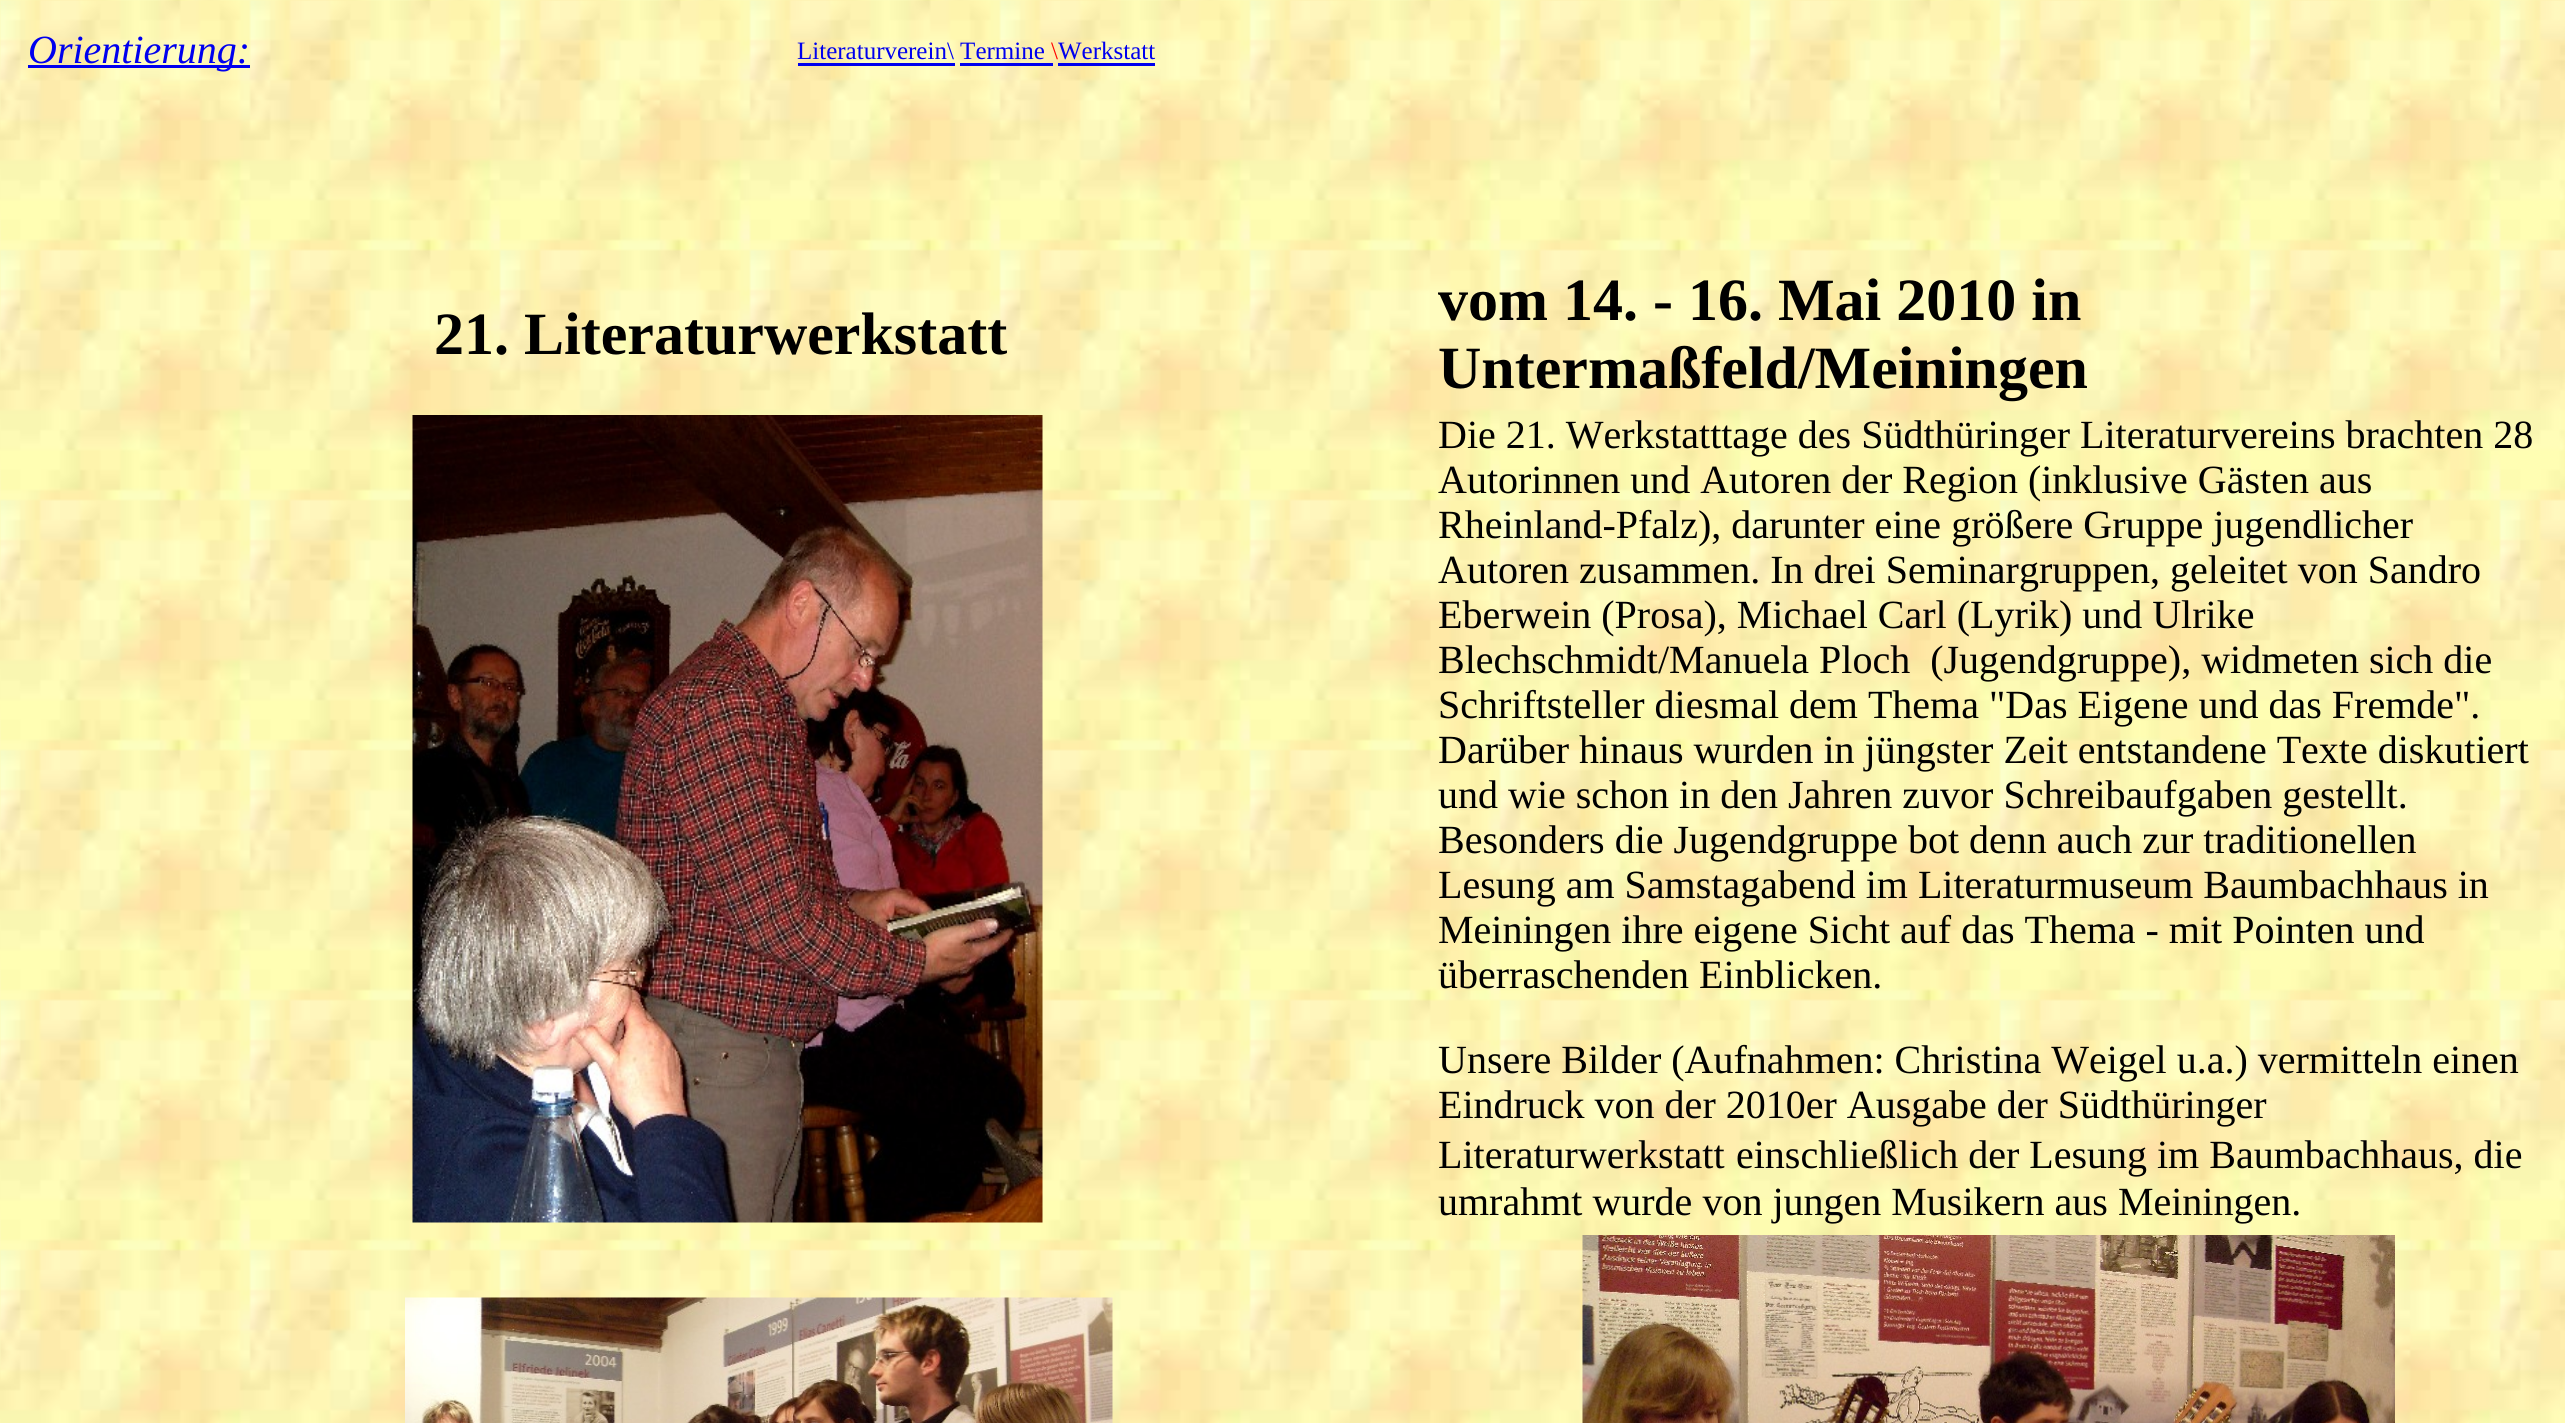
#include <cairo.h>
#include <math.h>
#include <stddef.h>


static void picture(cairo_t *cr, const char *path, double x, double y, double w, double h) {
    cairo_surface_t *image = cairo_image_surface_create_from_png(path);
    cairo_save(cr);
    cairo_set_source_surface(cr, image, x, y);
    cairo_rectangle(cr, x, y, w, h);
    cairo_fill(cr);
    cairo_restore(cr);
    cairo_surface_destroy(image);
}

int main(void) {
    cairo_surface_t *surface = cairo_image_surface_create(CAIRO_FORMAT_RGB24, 2565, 1423);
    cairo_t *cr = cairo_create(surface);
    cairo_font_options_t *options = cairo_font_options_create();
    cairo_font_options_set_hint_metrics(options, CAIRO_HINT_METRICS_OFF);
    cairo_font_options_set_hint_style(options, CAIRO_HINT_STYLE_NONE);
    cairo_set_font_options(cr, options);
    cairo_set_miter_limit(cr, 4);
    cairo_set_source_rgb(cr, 1, 1, 1);
    cairo_paint(cr);
    picture(cr, "img1.png", 0, 0, 2565, 1423);
    cairo_set_source_rgb(cr, 0, 0, 0.933);
    cairo_rectangle(cr, 28, 65, 222, 3);
    cairo_fill(cr);
    cairo_select_font_face(cr, "Liberation Serif", CAIRO_FONT_SLANT_ITALIC, CAIRO_FONT_WEIGHT_NORMAL);
    cairo_set_font_size(cr, 40);
    cairo_move_to(cr, 28, 63);
    cairo_show_text(cr, "Orientierung:");
    cairo_select_font_face(cr, "Liberation Serif", CAIRO_FONT_SLANT_NORMAL, CAIRO_FONT_WEIGHT_NORMAL);
    cairo_set_font_size(cr, 25);
    cairo_move_to(cr, 797, 59);
    cairo_show_text(cr, "Literaturverein\\ Termine");
    cairo_rectangle(cr, 798, 63, 157, 3);
    cairo_fill(cr);
    cairo_rectangle(cr, 960, 63, 93, 3);
    cairo_fill(cr);
    cairo_set_source_rgb(cr, 1, 0, 0);
    cairo_move_to(cr, 1051, 59);
    cairo_show_text(cr, "\\");
    cairo_set_source_rgb(cr, 0, 0, 0.933);
    cairo_rectangle(cr, 1058, 63, 97, 3);
    cairo_fill(cr);
    cairo_move_to(cr, 1058, 59);
    cairo_show_text(cr, "Werkstatt");
    cairo_select_font_face(cr, "Liberation Serif", CAIRO_FONT_SLANT_NORMAL, CAIRO_FONT_WEIGHT_BOLD);
    cairo_set_font_size(cr, 60);
    cairo_set_source_rgb(cr, 0, 0, 0);
    cairo_move_to(cr, 434, 354);
    cairo_show_text(cr, "21. Literaturwerkstatt");
    cairo_move_to(cr, 1438, 320);
    cairo_show_text(cr, "vom 14. - 16. Mai 2010 in");
    cairo_move_to(cr, 1438, 388);
    cairo_show_text(cr, "Untermaßfeld/Meiningen");
    picture(cr, "img2.png", 412, 415, 631, 808);
    cairo_select_font_face(cr, "Liberation Serif", CAIRO_FONT_SLANT_NORMAL, CAIRO_FONT_WEIGHT_NORMAL);
    cairo_set_font_size(cr, 40);
    cairo_move_to(cr, 1438, 448);
    cairo_show_text(cr, "Die 21. Werkstatttage des Südthüringer Literaturvereins brachten 28");
    cairo_move_to(cr, 1438, 493);
    cairo_show_text(cr, "Autorinnen und Autoren der Region (inklusive Gästen aus");
    cairo_move_to(cr, 1438, 538);
    cairo_show_text(cr, "Rheinland-Pfalz), darunter eine größere Gruppe jugendlicher");
    cairo_move_to(cr, 1438, 583);
    cairo_show_text(cr, "Autoren zusammen. In drei Seminargruppen, geleitet von Sandro");
    cairo_move_to(cr, 1438, 628);
    cairo_show_text(cr, "Eberwein (Prosa), Michael Carl (Lyrik) und Ulrike");
    cairo_move_to(cr, 1438, 673);
    cairo_show_text(cr, "Blechschmidt/Manuela Ploch  (Jugendgruppe), widmeten sich die");
    cairo_move_to(cr, 1438, 718);
    cairo_show_text(cr, "Schriftsteller diesmal dem Thema \"Das Eigene und das Fremde\".");
    cairo_move_to(cr, 1438, 763);
    cairo_show_text(cr, "Darüber hinaus wurden in jüngster Zeit entstandene Texte diskutiert");
    cairo_move_to(cr, 1438, 808);
    cairo_show_text(cr, "und wie schon in den Jahren zuvor Schreibaufgaben gestellt.");
    cairo_move_to(cr, 1438, 853);
    cairo_show_text(cr, "Besonders die Jugendgruppe bot denn auch zur traditionellen");
    cairo_move_to(cr, 1438, 898);
    cairo_show_text(cr, "Lesung am Samstagabend im Literaturmuseum Baumbachhaus in");
    cairo_move_to(cr, 1438, 943);
    cairo_show_text(cr, "Meiningen ihre eigene Sicht auf das Thema - mit Pointen und");
    cairo_move_to(cr, 1438, 988);
    cairo_show_text(cr, "überraschenden Einblicken.");
    cairo_move_to(cr, 1438, 1073);
    cairo_show_text(cr, "Unsere Bilder (Aufnahmen: Christina Weigel u.a.) vermitteln einen");
    cairo_move_to(cr, 1438, 1118);
    cairo_show_text(cr, "Eindruck von der 2010er Ausgabe der Südthüringer");
    cairo_move_to(cr, 1438, 1168);
    cairo_show_text(cr, "Literaturwerkstatt");
    cairo_move_to(cr, 1736, 1168);
    cairo_show_text(cr, "einschließlich der Lesung im Baumbachhaus, die");
    cairo_move_to(cr, 1438, 1215);
    cairo_show_text(cr, "umrahmt wurde von jungen Musikern aus Meiningen.");
    picture(cr, "img3.png", 405, 1297, 708, 126);
    picture(cr, "img4.png", 1582, 1235, 813, 188);
    cairo_surface_write_to_png(surface, "page.png");
    cairo_font_options_destroy(options);
    cairo_destroy(cr);
    cairo_surface_destroy(surface);
    return 0;
}
